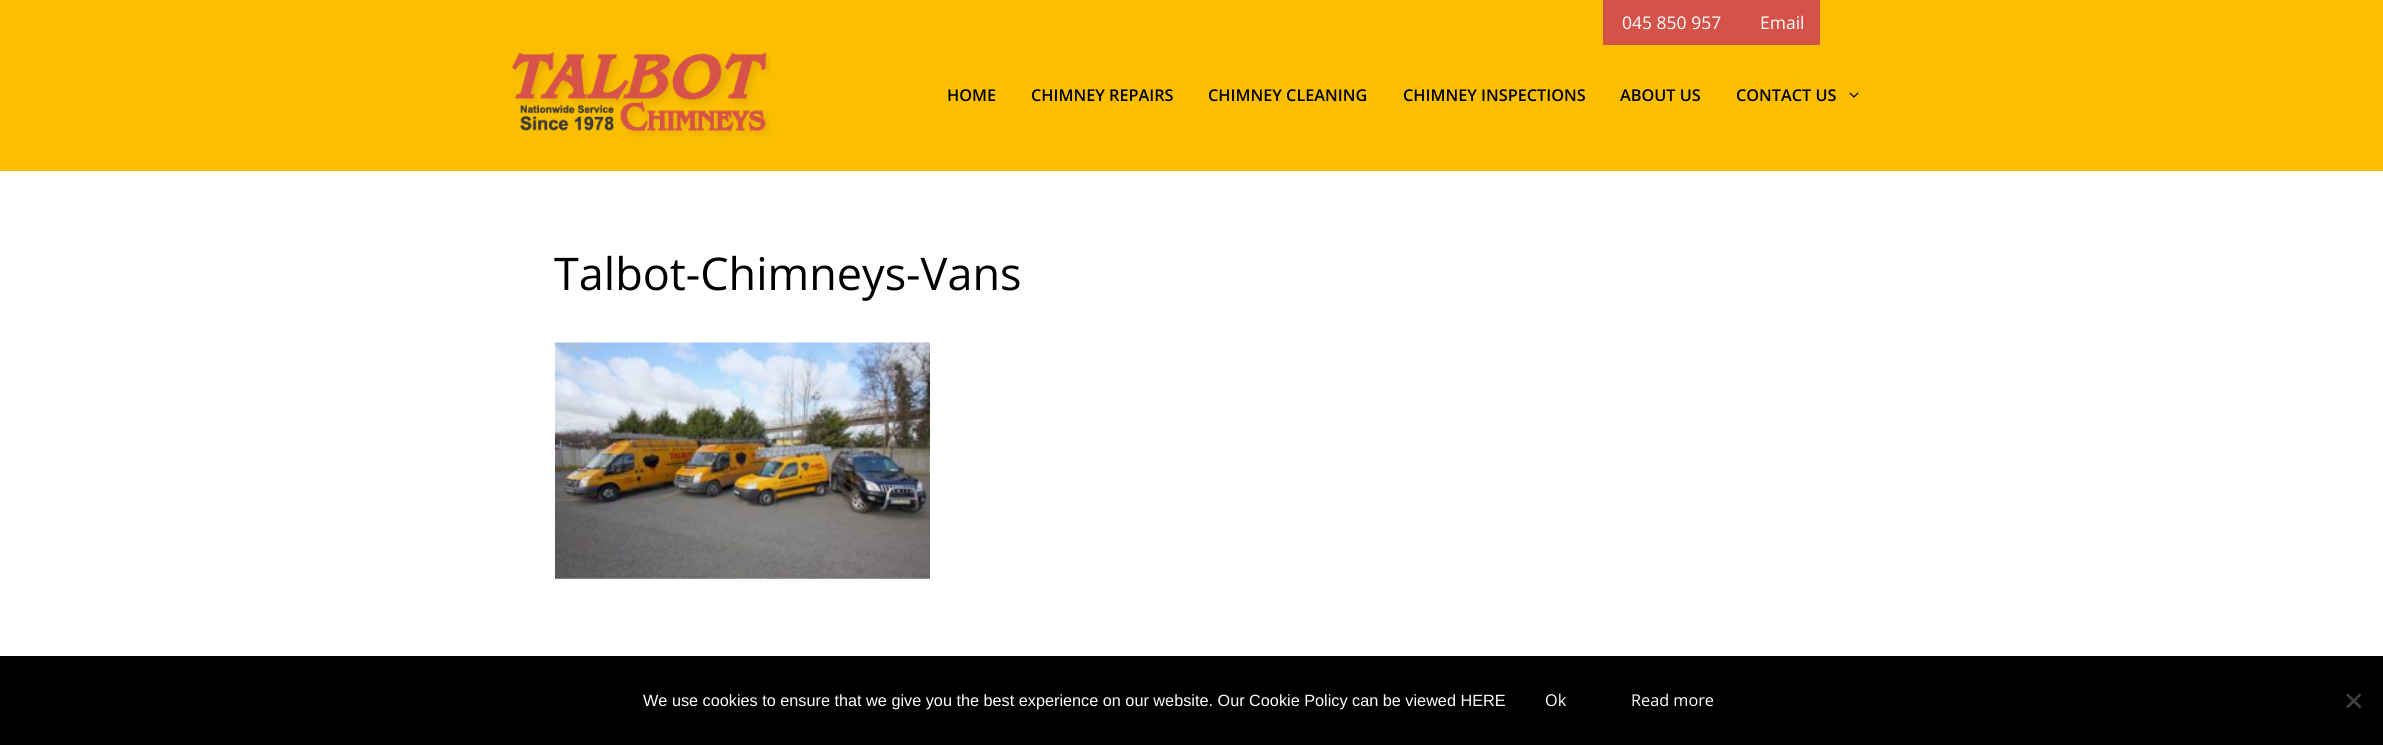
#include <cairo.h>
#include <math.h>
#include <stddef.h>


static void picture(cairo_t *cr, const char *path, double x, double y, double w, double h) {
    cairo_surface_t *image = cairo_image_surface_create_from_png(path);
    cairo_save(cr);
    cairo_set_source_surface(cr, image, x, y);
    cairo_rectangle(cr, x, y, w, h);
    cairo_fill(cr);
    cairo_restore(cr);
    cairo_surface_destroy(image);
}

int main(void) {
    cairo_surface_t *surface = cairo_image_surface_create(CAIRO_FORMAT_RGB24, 2383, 745);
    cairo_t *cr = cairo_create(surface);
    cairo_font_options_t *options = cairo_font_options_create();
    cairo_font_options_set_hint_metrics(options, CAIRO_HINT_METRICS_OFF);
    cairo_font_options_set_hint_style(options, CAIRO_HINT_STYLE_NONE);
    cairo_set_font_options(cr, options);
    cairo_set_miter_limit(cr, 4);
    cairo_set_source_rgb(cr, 1, 1, 1);
    cairo_paint(cr);
    cairo_set_source_rgb(cr, 0.988, 0.749, 0);
    cairo_rectangle(cr, 0, 0, 2383, 171);
    cairo_fill(cr);
    cairo_set_source_rgb(cr, 0.835, 0.322, 0.282);
    cairo_rectangle(cr, 1603, 0, 217, 45);
    cairo_fill(cr);
    cairo_select_font_face(cr, "Open Sans", CAIRO_FONT_SLANT_NORMAL, CAIRO_FONT_WEIGHT_NORMAL);
    cairo_set_font_size(cr, 17.5);
    cairo_set_source_rgb(cr, 1, 1, 1);
    cairo_move_to(cr, 1622, 29);
    cairo_show_text(cr, "045 850 957");
    cairo_move_to(cr, 1760, 29);
    cairo_show_text(cr, "Email");
    picture(cr, "img1.png", 511, 52, 261, 85);
    cairo_select_font_face(cr, "Open Sans SemiBold", CAIRO_FONT_SLANT_NORMAL, CAIRO_FONT_WEIGHT_NORMAL);
    cairo_set_font_size(cr, 16.25);
    cairo_set_source_rgb(cr, 0, 0, 0);
    cairo_move_to(cr, 947, 101);
    cairo_show_text(cr, "HOME");
    cairo_move_to(cr, 1031, 101);
    cairo_show_text(cr, "CHIMNEY REPAIRS");
    cairo_move_to(cr, 1208, 101);
    cairo_show_text(cr, "CHIMNEY CLEANING");
    cairo_move_to(cr, 1403, 101);
    cairo_show_text(cr, "CHIMNEY INSPECTIONS");
    cairo_move_to(cr, 1620, 101);
    cairo_show_text(cr, "ABOUT US");
    cairo_move_to(cr, 1736, 101);
    cairo_show_text(cr, "CONTACT US");
    picture(cr, "img2.png", 1849, 92, 10, 6);
    cairo_select_font_face(cr, "Open Sans", CAIRO_FONT_SLANT_NORMAL, CAIRO_FONT_WEIGHT_NORMAL);
    cairo_set_font_size(cr, 45);
    cairo_move_to(cr, 554, 290);
    cairo_show_text(cr, "Talbot-Chimneys-Vans");
    picture(cr, "img3.png", 555, 342, 375, 237);
    cairo_rectangle(cr, 0, 656, 2383, 89);
    cairo_fill(cr);
    cairo_select_font_face(cr, "Liberation Sans", CAIRO_FONT_SLANT_NORMAL, CAIRO_FONT_WEIGHT_NORMAL);
    cairo_set_font_size(cr, 16.25);
    cairo_set_source_rgb(cr, 1, 1, 1);
    cairo_move_to(cr, 643, 706);
    cairo_show_text(cr, "We use cookies to ensure that we give you the best experience on our website. Our Cookie Policy can be viewed HERE");
    cairo_select_font_face(cr, "Open Sans", CAIRO_FONT_SLANT_NORMAL, CAIRO_FONT_WEIGHT_NORMAL);
    cairo_move_to(cr, 1545, 706);
    cairo_show_text(cr, "Ok");
    cairo_move_to(cr, 1631, 706);
    cairo_show_text(cr, "Read more");
    cairo_set_source_rgb(cr, 0.251, 0.251, 0.251);
    cairo_new_path(cr);
    cairo_move_to(cr, 2359.5, 693.5);
    cairo_line_to(cr, 2361.5, 695);
    cairo_line_to(cr, 2348, 708.5);
    cairo_line_to(cr, 2346, 706.5);
    cairo_close_path(cr);
    cairo_fill(cr);
    cairo_new_path(cr);
    cairo_move_to(cr, 2346, 695);
    cairo_line_to(cr, 2348, 693.5);
    cairo_line_to(cr, 2361.5, 706.5);
    cairo_line_to(cr, 2359.5, 708.5);
    cairo_close_path(cr);
    cairo_fill(cr);
    cairo_surface_write_to_png(surface, "page.png");
    cairo_font_options_destroy(options);
    cairo_destroy(cr);
    cairo_surface_destroy(surface);
    return 0;
}
